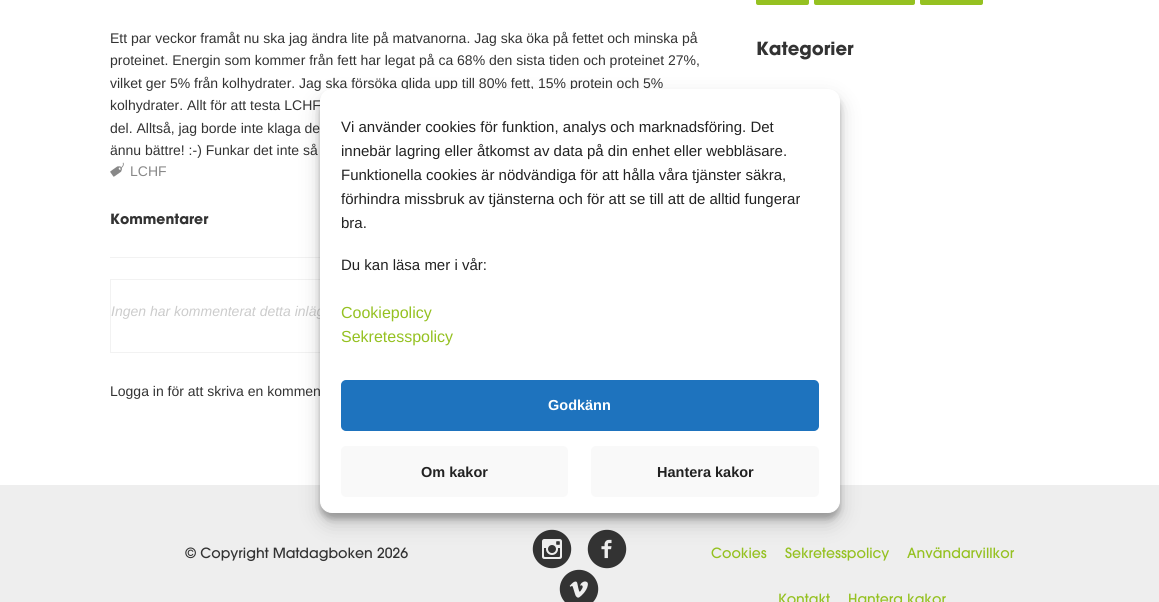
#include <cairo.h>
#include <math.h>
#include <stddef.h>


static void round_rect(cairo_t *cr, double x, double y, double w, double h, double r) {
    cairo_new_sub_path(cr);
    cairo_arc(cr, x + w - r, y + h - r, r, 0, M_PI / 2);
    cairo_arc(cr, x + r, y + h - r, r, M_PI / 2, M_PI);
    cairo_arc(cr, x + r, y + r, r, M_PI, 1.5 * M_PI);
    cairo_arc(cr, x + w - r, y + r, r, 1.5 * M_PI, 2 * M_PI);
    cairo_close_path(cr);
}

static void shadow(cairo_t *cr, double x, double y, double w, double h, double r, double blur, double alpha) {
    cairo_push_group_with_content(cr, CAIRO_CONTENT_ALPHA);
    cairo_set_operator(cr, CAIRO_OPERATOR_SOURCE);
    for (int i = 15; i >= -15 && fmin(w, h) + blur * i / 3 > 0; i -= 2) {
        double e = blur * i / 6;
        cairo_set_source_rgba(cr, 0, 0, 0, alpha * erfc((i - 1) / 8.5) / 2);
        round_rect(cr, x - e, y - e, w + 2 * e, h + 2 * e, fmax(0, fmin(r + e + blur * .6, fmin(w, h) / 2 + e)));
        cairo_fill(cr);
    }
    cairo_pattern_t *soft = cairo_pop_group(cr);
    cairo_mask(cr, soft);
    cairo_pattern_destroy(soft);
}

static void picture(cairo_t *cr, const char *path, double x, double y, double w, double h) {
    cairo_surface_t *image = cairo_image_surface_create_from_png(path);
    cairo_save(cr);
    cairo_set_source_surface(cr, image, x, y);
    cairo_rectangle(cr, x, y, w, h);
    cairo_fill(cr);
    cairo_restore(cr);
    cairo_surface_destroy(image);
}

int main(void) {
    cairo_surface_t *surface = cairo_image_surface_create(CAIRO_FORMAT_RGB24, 1159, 602);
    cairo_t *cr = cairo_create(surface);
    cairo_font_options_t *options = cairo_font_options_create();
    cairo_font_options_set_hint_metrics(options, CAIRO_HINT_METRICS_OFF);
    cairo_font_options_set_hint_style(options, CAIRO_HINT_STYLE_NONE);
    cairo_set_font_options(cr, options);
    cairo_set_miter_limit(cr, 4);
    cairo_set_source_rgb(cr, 1, 1, 1);
    cairo_paint(cr);
    cairo_select_font_face(cr, "Liberation Sans", CAIRO_FONT_SLANT_NORMAL, CAIRO_FONT_WEIGHT_NORMAL);
    cairo_set_font_size(cr, 14);
    cairo_set_source_rgb(cr, 0.2, 0.2, 0.2);
    cairo_move_to(cr, 110, 43);
    cairo_show_text(cr, "Ett par veckor framåt nu ska jag ändra lite på matvanorna. Jag ska öka på fettet och minska på");
    cairo_move_to(cr, 110, 65);
    cairo_show_text(cr, "proteinet. Energin som kommer från fett har legat på ca 68% den sista tiden och proteinet 27%,");
    cairo_move_to(cr, 110, 88);
    cairo_show_text(cr, "vilket ger 5% från kolhydrater. Jag ska försöka glida upp till 80% fett, 15% protein och 5%");
    cairo_move_to(cr, 110, 110);
    cairo_show_text(cr, "kolhydrater. Allt för att testa LCHF");
    cairo_move_to(cr, 110, 133);
    cairo_show_text(cr, "del. Alltså, jag borde inte klaga de");
    cairo_move_to(cr, 110, 155);
    cairo_show_text(cr, "ännu bättre! :-) Funkar det inte så");
    picture(cr, "img1.png", 110, 162, 14, 15);
    cairo_set_source_rgb(cr, 0.533, 0.533, 0.533);
    cairo_move_to(cr, 130, 176);
    cairo_show_text(cr, "LCHF");
    cairo_set_source_rgb(cr, 0.949, 0.949, 0.949);
    cairo_rectangle(cr, 110, 257, 210, 1);
    cairo_fill(cr);
    cairo_select_font_face(cr, "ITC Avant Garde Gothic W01", CAIRO_FONT_SLANT_NORMAL, CAIRO_FONT_WEIGHT_BOLD);
    cairo_set_source_rgb(cr, 0.2, 0.2, 0.2);
    cairo_move_to(cr, 110, 224);
    cairo_show_text(cr, "Kommentarer");
    cairo_rectangle(cr, 110.5, 279.5, 615, 73);
    cairo_set_source_rgb(cr, 0.949, 0.949, 0.949);
    cairo_set_line_width(cr, 1);
    cairo_stroke(cr);
    cairo_select_font_face(cr, "Liberation Sans", CAIRO_FONT_SLANT_ITALIC, CAIRO_FONT_WEIGHT_NORMAL);
    cairo_set_source_rgb(cr, 0.8, 0.8, 0.8);
    cairo_move_to(cr, 111, 316);
    cairo_show_text(cr, "Ingen har kommenterat detta inläg");
    cairo_select_font_face(cr, "Liberation Sans", CAIRO_FONT_SLANT_NORMAL, CAIRO_FONT_WEIGHT_NORMAL);
    cairo_set_source_rgb(cr, 0.2, 0.2, 0.2);
    cairo_move_to(cr, 110, 396);
    cairo_show_text(cr, "Logga in för att skriva en kommen");
    cairo_set_source_rgb(cr, 0.584, 0.757, 0.129);
    round_rect(cr, 756, -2, 53, 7, 2);
    cairo_fill(cr);
    round_rect(cr, 814, -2, 101, 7, 2);
    cairo_fill(cr);
    round_rect(cr, 920, -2, 63, 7, 2);
    cairo_fill(cr);
    cairo_select_font_face(cr, "ITC Avant Garde Gothic W01", CAIRO_FONT_SLANT_NORMAL, CAIRO_FONT_WEIGHT_BOLD);
    cairo_set_font_size(cr, 18);
    cairo_set_source_rgb(cr, 0.2, 0.2, 0.2);
    cairo_move_to(cr, 756, 55);
    cairo_show_text(cr, "Kategorier");
    cairo_set_source_rgb(cr, 0.933, 0.933, 0.933);
    cairo_rectangle(cr, 0, 485, 1159, 117);
    cairo_fill(cr);
    cairo_set_source_rgb(cr, 0, 0, 0);
    shadow(cr, 320, 95, 520, 424, 12, 3, 0.23);
    picture(cr, "img2.png", 532, 529, 40, 40);
    picture(cr, "img3.png", 587, 529, 40, 40);
    shadow(cr, 320, 99, 520, 424, 12, 10, 0.19);
    cairo_set_source_rgb(cr, 1, 1, 1);
    round_rect(cr, 320.5, 89.5, 519, 423, 11.5);
    cairo_fill_preserve(cr);
    cairo_stroke(cr);
    cairo_select_font_face(cr, "Liberation Sans", CAIRO_FONT_SLANT_NORMAL, CAIRO_FONT_WEIGHT_NORMAL);
    cairo_set_font_size(cr, 15);
    cairo_set_source_rgb(cr, 0.133, 0.133, 0.133);
    cairo_move_to(cr, 341, 132);
    cairo_show_text(cr, "Vi använder cookies för funktion, analys och marknadsföring. Det");
    cairo_move_to(cr, 341, 156);
    cairo_show_text(cr, "innebär lagring eller åtkomst av data på din enhet eller webbläsare.");
    cairo_move_to(cr, 341, 180);
    cairo_show_text(cr, "Funktionella cookies är nödvändiga för att hålla våra tjänster säkra,");
    cairo_move_to(cr, 341, 204);
    cairo_show_text(cr, "förhindra missbruk av tjänsterna och för att se till att de alltid fungerar");
    cairo_move_to(cr, 341, 228);
    cairo_show_text(cr, "bra.");
    cairo_move_to(cr, 341, 270);
    cairo_show_text(cr, "Du kan läsa mer i vår:");
    cairo_set_font_size(cr, 16);
    cairo_set_source_rgb(cr, 0.584, 0.757, 0.129);
    cairo_move_to(cr, 341, 318);
    cairo_show_text(cr, "Cookiepolicy");
    cairo_move_to(cr, 341, 342);
    cairo_show_text(cr, "Sekretesspolicy");
    cairo_set_source_rgb(cr, 0.118, 0.451, 0.745);
    round_rect(cr, 342, 381, 476, 49, 4);
    cairo_fill_preserve(cr);
    cairo_set_line_width(cr, 2);
    cairo_stroke(cr);
    cairo_select_font_face(cr, "Liberation Sans", CAIRO_FONT_SLANT_NORMAL, CAIRO_FONT_WEIGHT_BOLD);
    cairo_set_font_size(cr, 14.5);
    cairo_set_source_rgb(cr, 1, 1, 1);
    cairo_move_to(cr, 548, 410);
    cairo_show_text(cr, "Godkänn");
    cairo_set_source_rgb(cr, 0.976, 0.976, 0.976);
    round_rect(cr, 341, 446, 227, 51, 5);
    cairo_fill(cr);
    cairo_set_source_rgb(cr, 0.133, 0.133, 0.133);
    cairo_move_to(cr, 421, 477);
    cairo_show_text(cr, "Om kakor");
    cairo_set_source_rgb(cr, 0.976, 0.976, 0.976);
    round_rect(cr, 591, 446, 228, 51, 5);
    cairo_fill(cr);
    cairo_set_source_rgb(cr, 0.133, 0.133, 0.133);
    cairo_move_to(cr, 657, 477);
    cairo_show_text(cr, "Hantera kakor");
    cairo_select_font_face(cr, "ITC Avant Garde Gothic W01 Medium", CAIRO_FONT_SLANT_NORMAL, CAIRO_FONT_WEIGHT_NORMAL);
    cairo_set_font_size(cr, 14);
    cairo_set_source_rgb(cr, 0.2, 0.2, 0.2);
    cairo_move_to(cr, 185, 558);
    cairo_show_text(cr, "© Copyright Matdagboken 2026");
    picture(cr, "img4.png", 559, 569, 40, 33);
    cairo_set_source_rgb(cr, 0.584, 0.757, 0.129);
    cairo_move_to(cr, 711, 558);
    cairo_show_text(cr, "Cookies");
    cairo_move_to(cr, 785, 558);
    cairo_show_text(cr, "Sekretesspolicy");
    cairo_move_to(cr, 907, 558);
    cairo_show_text(cr, "Användarvillkor");
    cairo_move_to(cr, 778, 604);
    cairo_show_text(cr, "Kontakt");
    cairo_move_to(cr, 848, 604);
    cairo_show_text(cr, "Hantera kakor");
    cairo_surface_write_to_png(surface, "page.png");
    cairo_font_options_destroy(options);
    cairo_destroy(cr);
    cairo_surface_destroy(surface);
    return 0;
}
